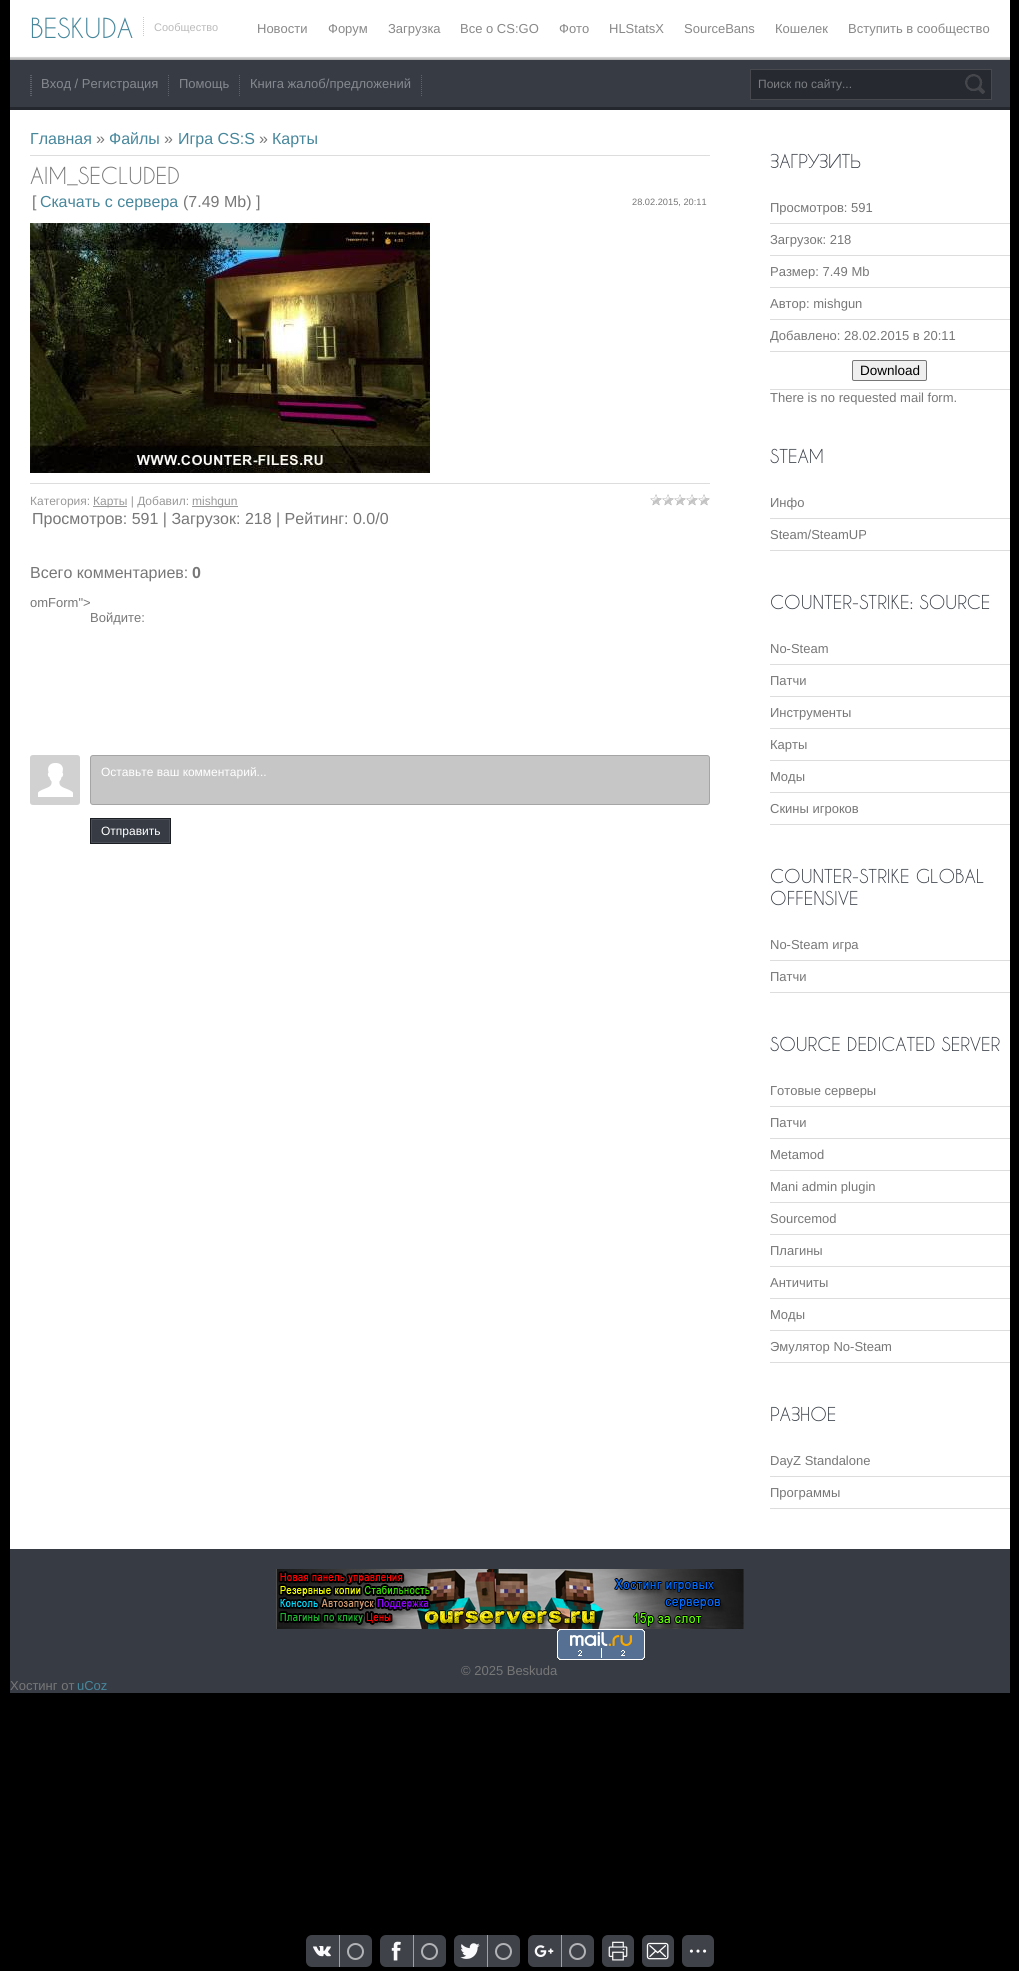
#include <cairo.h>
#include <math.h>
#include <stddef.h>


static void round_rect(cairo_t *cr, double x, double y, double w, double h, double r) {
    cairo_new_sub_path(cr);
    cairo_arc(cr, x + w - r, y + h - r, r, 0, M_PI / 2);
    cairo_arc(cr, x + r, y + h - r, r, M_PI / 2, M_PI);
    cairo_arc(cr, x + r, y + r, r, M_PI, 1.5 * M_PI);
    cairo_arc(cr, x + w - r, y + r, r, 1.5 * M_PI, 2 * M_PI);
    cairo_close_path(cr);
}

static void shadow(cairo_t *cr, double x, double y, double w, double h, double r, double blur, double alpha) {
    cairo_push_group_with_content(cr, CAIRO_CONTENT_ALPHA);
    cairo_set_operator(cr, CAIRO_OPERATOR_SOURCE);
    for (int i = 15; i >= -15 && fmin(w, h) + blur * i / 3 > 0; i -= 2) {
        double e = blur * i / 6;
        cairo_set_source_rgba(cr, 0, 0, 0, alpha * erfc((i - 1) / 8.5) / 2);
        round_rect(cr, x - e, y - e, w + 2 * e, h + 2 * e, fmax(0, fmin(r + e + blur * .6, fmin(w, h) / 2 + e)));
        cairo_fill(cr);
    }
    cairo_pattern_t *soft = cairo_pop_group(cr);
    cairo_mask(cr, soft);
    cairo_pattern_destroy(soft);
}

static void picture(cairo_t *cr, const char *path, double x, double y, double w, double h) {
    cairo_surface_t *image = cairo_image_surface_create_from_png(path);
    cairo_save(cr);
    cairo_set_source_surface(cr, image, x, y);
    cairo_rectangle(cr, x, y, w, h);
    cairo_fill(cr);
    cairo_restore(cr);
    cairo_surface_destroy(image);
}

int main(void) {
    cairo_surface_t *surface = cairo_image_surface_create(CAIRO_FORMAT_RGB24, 1019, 1971);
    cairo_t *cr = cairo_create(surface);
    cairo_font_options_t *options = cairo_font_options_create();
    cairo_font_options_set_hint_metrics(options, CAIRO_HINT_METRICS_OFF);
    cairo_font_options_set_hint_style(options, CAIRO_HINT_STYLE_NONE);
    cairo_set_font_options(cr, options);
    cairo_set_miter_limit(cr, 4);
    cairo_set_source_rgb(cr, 0, 0, 0);
    cairo_paint(cr);
    cairo_set_source_rgb(cr, 0.867, 0.867, 0.867);
    cairo_rectangle(cr, 10, 57, 1000, 3);
    cairo_fill(cr);
    cairo_set_source_rgb(cr, 1, 1, 1);
    cairo_rectangle(cr, 10, 0, 1000, 57);
    cairo_fill(cr);
    cairo_select_font_face(cr, "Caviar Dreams", CAIRO_FONT_SLANT_NORMAL, CAIRO_FONT_WEIGHT_NORMAL);
    cairo_set_font_size(cr, 26);
    cairo_set_source_rgb(cr, 0.278, 0.529, 0.612);
    cairo_move_to(cr, 30, 38);
    cairo_show_text(cr, "BESKUDA");
    cairo_new_path(cr);
    cairo_move_to(cr, 143.5, 17);
    cairo_line_to(cr, 143.5, 37);
    cairo_set_source_rgb(cr, 0.8, 0.8, 0.8);
    cairo_set_line_width(cr, 1);
    cairo_set_dash(cr, (double[]){1, 1}, 2, 0);
    cairo_stroke(cr);
    cairo_select_font_face(cr, "Liberation Sans", CAIRO_FONT_SLANT_NORMAL, CAIRO_FONT_WEIGHT_NORMAL);
    cairo_set_font_size(cr, 11);
    cairo_set_source_rgb(cr, 0.733, 0.733, 0.733);
    cairo_move_to(cr, 154, 31);
    cairo_show_text(cr, "Сообщество");
    cairo_set_font_size(cr, 13);
    cairo_set_source_rgb(cr, 0.533, 0.533, 0.533);
    cairo_move_to(cr, 257, 33);
    cairo_show_text(cr, "Новости");
    cairo_move_to(cr, 328, 33);
    cairo_show_text(cr, "Форум");
    cairo_move_to(cr, 388, 33);
    cairo_show_text(cr, "Загрузка");
    cairo_move_to(cr, 460, 33);
    cairo_show_text(cr, "Все о CS:GO");
    cairo_move_to(cr, 559, 33);
    cairo_show_text(cr, "Фото");
    cairo_move_to(cr, 609, 33);
    cairo_show_text(cr, "HLStatsX");
    cairo_move_to(cr, 684, 33);
    cairo_show_text(cr, "SourceBans");
    cairo_move_to(cr, 775, 33);
    cairo_show_text(cr, "Кошелек");
    cairo_move_to(cr, 848, 33);
    cairo_show_text(cr, "Вступить в сообщество");
    cairo_set_source_rgb(cr, 0, 0, 0);
    shadow(cr, 9, 59, 1002, 1491, 0, 1.5, 0.3);
    cairo_set_source_rgb(cr, 1, 1, 1);
    cairo_rectangle(cr, 10, 110, 1000, 1439);
    cairo_fill(cr);
    cairo_set_source_rgb(cr, 0.212, 0.231, 0.267);
    cairo_rectangle(cr, 10, 60, 1000, 47);
    cairo_fill(cr);
    cairo_set_source_rgb(cr, 0.141, 0.157, 0.18);
    cairo_rectangle(cr, 10, 107, 1000, 3);
    cairo_fill(cr);
    picture(cr, "img1.png", 30, 75, 2, 21);
    picture(cr, "img2.png", 168, 75, 1, 21);
    cairo_set_source_rgb(cr, 0.525, 0.537, 0.561);
    cairo_move_to(cr, 41, 88);
    cairo_show_text(cr, "Вход / Регистрация");
    picture(cr, "img2.png", 239, 75, 1, 21);
    cairo_move_to(cr, 179, 88);
    cairo_show_text(cr, "Помощь");
    picture(cr, "img2.png", 421, 75, 1, 21);
    cairo_move_to(cr, 250, 88);
    cairo_show_text(cr, "Книга жалоб/предложений");
    cairo_set_source_rgb(cr, 0.149, 0.161, 0.188);
    cairo_rectangle(cr, 750.5, 69.5, 241, 30);
    cairo_fill_preserve(cr);
    cairo_set_source_rgb(cr, 0.278, 0.286, 0.31);
    cairo_set_dash(cr, NULL, 0, 0);
    cairo_stroke(cr);
    cairo_set_font_size(cr, 12);
    cairo_set_source_rgb(cr, 0.49, 0.498, 0.514);
    cairo_move_to(cr, 758, 88);
    cairo_show_text(cr, "Поиск по сайту...");
    picture(cr, "img3.png", 965, 74, 20, 20);
    cairo_set_font_size(cr, 16);
    cairo_set_source_rgb(cr, 0.278, 0.529, 0.612);
    cairo_move_to(cr, 30, 144);
    cairo_show_text(cr, "Главная");
    cairo_set_source_rgb(cr, 0.467, 0.467, 0.467);
    cairo_move_to(cr, 96, 144);
    cairo_show_text(cr, "»");
    cairo_set_source_rgb(cr, 0.278, 0.529, 0.612);
    cairo_move_to(cr, 109, 144);
    cairo_show_text(cr, "Файлы");
    cairo_set_source_rgb(cr, 0.467, 0.467, 0.467);
    cairo_move_to(cr, 164, 144);
    cairo_show_text(cr, "»");
    cairo_set_source_rgb(cr, 0.278, 0.529, 0.612);
    cairo_move_to(cr, 178, 144);
    cairo_show_text(cr, "Игра CS:S");
    cairo_set_source_rgb(cr, 0.467, 0.467, 0.467);
    cairo_move_to(cr, 259, 144);
    cairo_show_text(cr, "»");
    cairo_set_source_rgb(cr, 0.278, 0.529, 0.612);
    cairo_move_to(cr, 272, 144);
    cairo_show_text(cr, "Карты");
    cairo_set_source_rgb(cr, 0.867, 0.867, 0.867);
    cairo_rectangle(cr, 30, 155, 680, 1);
    cairo_fill(cr);
    cairo_select_font_face(cr, "Caviar Dreams", CAIRO_FONT_SLANT_NORMAL, CAIRO_FONT_WEIGHT_NORMAL);
    cairo_set_font_size(cr, 22);
    cairo_set_source_rgb(cr, 0.467, 0.467, 0.467);
    cairo_move_to(cr, 30, 184);
    cairo_show_text(cr, "AIM_SECLUDED");
    cairo_select_font_face(cr, "Liberation Sans", CAIRO_FONT_SLANT_NORMAL, CAIRO_FONT_WEIGHT_NORMAL);
    cairo_set_font_size(cr, 16);
    cairo_move_to(cr, 32, 207);
    cairo_show_text(cr, "[");
    cairo_set_source_rgb(cr, 0.278, 0.529, 0.612);
    cairo_move_to(cr, 40, 207);
    cairo_show_text(cr, "Скачать с сервера");
    cairo_set_source_rgb(cr, 0.467, 0.467, 0.467);
    cairo_move_to(cr, 183, 207);
    cairo_show_text(cr, "(7.49 Mb) ]");
    cairo_set_font_size(cr, 9.25);
    cairo_move_to(cr, 632, 205);
    cairo_show_text(cr, "28.02.2015, 20:11");
    picture(cr, "img4.png", 30, 223, 400, 250);
    cairo_set_source_rgb(cr, 0.867, 0.867, 0.867);
    cairo_rectangle(cr, 30, 483, 680, 1);
    cairo_fill(cr);
    cairo_set_font_size(cr, 12);
    cairo_set_source_rgb(cr, 0.6, 0.6, 0.6);
    cairo_move_to(cr, 30, 505);
    cairo_show_text(cr, "Категория:");
    cairo_rectangle(cr, 93, 506, 34, 1);
    cairo_fill(cr);
    cairo_move_to(cr, 93, 505);
    cairo_show_text(cr, "Карты | Добавил:");
    cairo_rectangle(cr, 192, 506, 46, 1);
    cairo_fill(cr);
    cairo_move_to(cr, 192, 505);
    cairo_show_text(cr, "mishgun");
    picture(cr, "img5.png", 650, 494, 60, 12);
    cairo_set_font_size(cr, 16);
    cairo_set_source_rgb(cr, 0.467, 0.467, 0.467);
    cairo_move_to(cr, 32, 524);
    cairo_show_text(cr, "Просмотров: 591 | Загрузок: 218 | Рейтинг: 0.0/0");
    cairo_move_to(cr, 30, 578);
    cairo_show_text(cr, "Всего комментариев:");
    cairo_select_font_face(cr, "Liberation Sans", CAIRO_FONT_SLANT_NORMAL, CAIRO_FONT_WEIGHT_BOLD);
    cairo_move_to(cr, 192, 578);
    cairo_show_text(cr, "0");
    cairo_select_font_face(cr, "Liberation Sans", CAIRO_FONT_SLANT_NORMAL, CAIRO_FONT_WEIGHT_NORMAL);
    cairo_set_font_size(cr, 13);
    cairo_move_to(cr, 30, 607);
    cairo_show_text(cr, "omForm\">");
    cairo_move_to(cr, 90, 622);
    cairo_show_text(cr, "Войдите:");
    picture(cr, "img6.png", 30, 755, 50, 50);
    cairo_set_source_rgb(cr, 0.776, 0.776, 0.776);
    round_rect(cr, 90.5, 755.5, 619, 49, 2.5);
    cairo_fill_preserve(cr);
    cairo_set_source_rgb(cr, 0.647, 0.647, 0.647);
    cairo_stroke(cr);
    cairo_set_font_size(cr, 12);
    cairo_set_source_rgb(cr, 1, 1, 1);
    cairo_move_to(cr, 101, 776);
    cairo_show_text(cr, "Оставьте ваш комментарий...");
    cairo_set_source_rgb(cr, 0.212, 0.231, 0.267);
    cairo_rectangle(cr, 91.5, 819.5, 78, 23);
    cairo_fill_preserve(cr);
    cairo_set_source_rgb(cr, 0.29, 0.31, 0.341);
    cairo_stroke(cr);
    cairo_rectangle(cr, 90.5, 818.5, 80, 25);
    cairo_set_source_rgb(cr, 0.106, 0.118, 0.133);
    cairo_stroke(cr);
    cairo_set_source_rgb(cr, 1, 1, 1);
    cairo_move_to(cr, 101, 835);
    cairo_show_text(cr, "Отправить");
    cairo_select_font_face(cr, "Caviar Dreams", CAIRO_FONT_SLANT_NORMAL, CAIRO_FONT_WEIGHT_NORMAL);
    cairo_set_font_size(cr, 18);
    cairo_set_source_rgb(cr, 0.212, 0.231, 0.267);
    cairo_move_to(cr, 770, 168);
    cairo_show_text(cr, "ЗАГРУЗИТЬ");
    cairo_set_source_rgb(cr, 0.867, 0.867, 0.867);
    cairo_rectangle(cr, 770, 223, 240, 1);
    cairo_fill(cr);
    cairo_select_font_face(cr, "Liberation Sans", CAIRO_FONT_SLANT_NORMAL, CAIRO_FONT_WEIGHT_NORMAL);
    cairo_set_font_size(cr, 13);
    cairo_set_source_rgb(cr, 0.467, 0.467, 0.467);
    cairo_move_to(cr, 770, 212);
    cairo_show_text(cr, "Просмотров: 591");
    cairo_set_source_rgb(cr, 0.867, 0.867, 0.867);
    cairo_rectangle(cr, 770, 255, 240, 1);
    cairo_fill(cr);
    cairo_set_source_rgb(cr, 0.467, 0.467, 0.467);
    cairo_move_to(cr, 770, 244);
    cairo_show_text(cr, "Загрузок: 218");
    cairo_set_source_rgb(cr, 0.867, 0.867, 0.867);
    cairo_rectangle(cr, 770, 287, 240, 1);
    cairo_fill(cr);
    cairo_set_source_rgb(cr, 0.467, 0.467, 0.467);
    cairo_move_to(cr, 770, 276);
    cairo_show_text(cr, "Размер: 7.49 Mb");
    cairo_set_source_rgb(cr, 0.867, 0.867, 0.867);
    cairo_rectangle(cr, 770, 319, 240, 1);
    cairo_fill(cr);
    cairo_set_source_rgb(cr, 0.467, 0.467, 0.467);
    cairo_move_to(cr, 770, 308);
    cairo_show_text(cr, "Автор: mishgun");
    cairo_set_source_rgb(cr, 0.867, 0.867, 0.867);
    cairo_rectangle(cr, 770, 351, 240, 1);
    cairo_fill(cr);
    cairo_set_source_rgb(cr, 0.467, 0.467, 0.467);
    cairo_move_to(cr, 770, 340);
    cairo_show_text(cr, "Добавлено: 28.02.2015 в 20:11");
    cairo_set_source_rgb(cr, 0.867, 0.867, 0.867);
    cairo_rectangle(cr, 770, 389, 240, 1);
    cairo_fill(cr);
    cairo_set_source_rgb(cr, 0.937, 0.937, 0.937);
    round_rect(cr, 852.5, 360.5, 74, 20, 1.5);
    cairo_fill_preserve(cr);
    cairo_set_source_rgb(cr, 0.463, 0.463, 0.463);
    cairo_stroke(cr);
    cairo_set_font_size(cr, 13.5);
    cairo_set_source_rgb(cr, 0, 0, 0);
    cairo_move_to(cr, 860, 375);
    cairo_show_text(cr, "Download");
    cairo_set_font_size(cr, 13);
    cairo_set_source_rgb(cr, 0.467, 0.467, 0.467);
    cairo_move_to(cr, 770, 402);
    cairo_show_text(cr, "There is no requested mail form.");
    cairo_select_font_face(cr, "Caviar Dreams", CAIRO_FONT_SLANT_NORMAL, CAIRO_FONT_WEIGHT_NORMAL);
    cairo_set_font_size(cr, 18);
    cairo_set_source_rgb(cr, 0.212, 0.231, 0.267);
    cairo_move_to(cr, 770, 463);
    cairo_show_text(cr, "STEAM");
    cairo_set_source_rgb(cr, 0.867, 0.867, 0.867);
    cairo_rectangle(cr, 770, 518, 240, 1);
    cairo_fill(cr);
    cairo_select_font_face(cr, "Liberation Sans", CAIRO_FONT_SLANT_NORMAL, CAIRO_FONT_WEIGHT_NORMAL);
    cairo_set_font_size(cr, 13);
    cairo_set_source_rgb(cr, 0.467, 0.467, 0.467);
    cairo_move_to(cr, 770, 507);
    cairo_show_text(cr, "Инфо");
    cairo_set_source_rgb(cr, 0.867, 0.867, 0.867);
    cairo_rectangle(cr, 770, 550, 240, 1);
    cairo_fill(cr);
    cairo_set_source_rgb(cr, 0.467, 0.467, 0.467);
    cairo_move_to(cr, 770, 539);
    cairo_show_text(cr, "Steam/SteamUP");
    cairo_select_font_face(cr, "Caviar Dreams", CAIRO_FONT_SLANT_NORMAL, CAIRO_FONT_WEIGHT_NORMAL);
    cairo_set_font_size(cr, 18);
    cairo_set_source_rgb(cr, 0.212, 0.231, 0.267);
    cairo_move_to(cr, 770, 609);
    cairo_show_text(cr, "COUNTER-STRIKE: SOURCE");
    cairo_set_source_rgb(cr, 0.867, 0.867, 0.867);
    cairo_rectangle(cr, 770, 664, 240, 1);
    cairo_fill(cr);
    cairo_select_font_face(cr, "Liberation Sans", CAIRO_FONT_SLANT_NORMAL, CAIRO_FONT_WEIGHT_NORMAL);
    cairo_set_font_size(cr, 13);
    cairo_set_source_rgb(cr, 0.467, 0.467, 0.467);
    cairo_move_to(cr, 770, 653);
    cairo_show_text(cr, "No-Steam");
    cairo_set_source_rgb(cr, 0.867, 0.867, 0.867);
    cairo_rectangle(cr, 770, 696, 240, 1);
    cairo_fill(cr);
    cairo_set_source_rgb(cr, 0.467, 0.467, 0.467);
    cairo_move_to(cr, 770, 685);
    cairo_show_text(cr, "Патчи");
    cairo_set_source_rgb(cr, 0.867, 0.867, 0.867);
    cairo_rectangle(cr, 770, 728, 240, 1);
    cairo_fill(cr);
    cairo_set_source_rgb(cr, 0.467, 0.467, 0.467);
    cairo_move_to(cr, 770, 717);
    cairo_show_text(cr, "Инструменты");
    cairo_set_source_rgb(cr, 0.867, 0.867, 0.867);
    cairo_rectangle(cr, 770, 760, 240, 1);
    cairo_fill(cr);
    cairo_set_source_rgb(cr, 0.467, 0.467, 0.467);
    cairo_move_to(cr, 770, 749);
    cairo_show_text(cr, "Карты");
    cairo_set_source_rgb(cr, 0.867, 0.867, 0.867);
    cairo_rectangle(cr, 770, 792, 240, 1);
    cairo_fill(cr);
    cairo_set_source_rgb(cr, 0.467, 0.467, 0.467);
    cairo_move_to(cr, 770, 781);
    cairo_show_text(cr, "Моды");
    cairo_set_source_rgb(cr, 0.867, 0.867, 0.867);
    cairo_rectangle(cr, 770, 824, 240, 1);
    cairo_fill(cr);
    cairo_set_source_rgb(cr, 0.467, 0.467, 0.467);
    cairo_move_to(cr, 770, 813);
    cairo_show_text(cr, "Скины игроков");
    cairo_select_font_face(cr, "Caviar Dreams", CAIRO_FONT_SLANT_NORMAL, CAIRO_FONT_WEIGHT_NORMAL);
    cairo_set_font_size(cr, 18);
    cairo_set_source_rgb(cr, 0.212, 0.231, 0.267);
    cairo_move_to(cr, 770, 883);
    cairo_show_text(cr, "COUNTER-STRIKE GLOBAL");
    cairo_move_to(cr, 770, 905);
    cairo_show_text(cr, "OFFENSIVE");
    cairo_set_source_rgb(cr, 0.867, 0.867, 0.867);
    cairo_rectangle(cr, 770, 960, 240, 1);
    cairo_fill(cr);
    cairo_select_font_face(cr, "Liberation Sans", CAIRO_FONT_SLANT_NORMAL, CAIRO_FONT_WEIGHT_NORMAL);
    cairo_set_font_size(cr, 13);
    cairo_set_source_rgb(cr, 0.467, 0.467, 0.467);
    cairo_move_to(cr, 770, 949);
    cairo_show_text(cr, "No-Steam игра");
    cairo_set_source_rgb(cr, 0.867, 0.867, 0.867);
    cairo_rectangle(cr, 770, 992, 240, 1);
    cairo_fill(cr);
    cairo_set_source_rgb(cr, 0.467, 0.467, 0.467);
    cairo_move_to(cr, 770, 981);
    cairo_show_text(cr, "Патчи");
    cairo_select_font_face(cr, "Caviar Dreams", CAIRO_FONT_SLANT_NORMAL, CAIRO_FONT_WEIGHT_NORMAL);
    cairo_set_font_size(cr, 18);
    cairo_set_source_rgb(cr, 0.212, 0.231, 0.267);
    cairo_move_to(cr, 770, 1051);
    cairo_show_text(cr, "SOURCE DEDICATED SERVER");
    cairo_set_source_rgb(cr, 0.867, 0.867, 0.867);
    cairo_rectangle(cr, 770, 1106, 240, 1);
    cairo_fill(cr);
    cairo_select_font_face(cr, "Liberation Sans", CAIRO_FONT_SLANT_NORMAL, CAIRO_FONT_WEIGHT_NORMAL);
    cairo_set_font_size(cr, 13);
    cairo_set_source_rgb(cr, 0.467, 0.467, 0.467);
    cairo_move_to(cr, 770, 1095);
    cairo_show_text(cr, "Готовые серверы");
    cairo_set_source_rgb(cr, 0.867, 0.867, 0.867);
    cairo_rectangle(cr, 770, 1138, 240, 1);
    cairo_fill(cr);
    cairo_set_source_rgb(cr, 0.467, 0.467, 0.467);
    cairo_move_to(cr, 770, 1127);
    cairo_show_text(cr, "Патчи");
    cairo_set_source_rgb(cr, 0.867, 0.867, 0.867);
    cairo_rectangle(cr, 770, 1170, 240, 1);
    cairo_fill(cr);
    cairo_set_source_rgb(cr, 0.467, 0.467, 0.467);
    cairo_move_to(cr, 770, 1159);
    cairo_show_text(cr, "Metamod");
    cairo_set_source_rgb(cr, 0.867, 0.867, 0.867);
    cairo_rectangle(cr, 770, 1202, 240, 1);
    cairo_fill(cr);
    cairo_set_source_rgb(cr, 0.467, 0.467, 0.467);
    cairo_move_to(cr, 770, 1191);
    cairo_show_text(cr, "Mani admin plugin");
    cairo_set_source_rgb(cr, 0.867, 0.867, 0.867);
    cairo_rectangle(cr, 770, 1234, 240, 1);
    cairo_fill(cr);
    cairo_set_source_rgb(cr, 0.467, 0.467, 0.467);
    cairo_move_to(cr, 770, 1223);
    cairo_show_text(cr, "Sourcemod");
    cairo_set_source_rgb(cr, 0.867, 0.867, 0.867);
    cairo_rectangle(cr, 770, 1266, 240, 1);
    cairo_fill(cr);
    cairo_set_source_rgb(cr, 0.467, 0.467, 0.467);
    cairo_move_to(cr, 770, 1255);
    cairo_show_text(cr, "Плагины");
    cairo_set_source_rgb(cr, 0.867, 0.867, 0.867);
    cairo_rectangle(cr, 770, 1298, 240, 1);
    cairo_fill(cr);
    cairo_set_source_rgb(cr, 0.467, 0.467, 0.467);
    cairo_move_to(cr, 770, 1287);
    cairo_show_text(cr, "Античиты");
    cairo_set_source_rgb(cr, 0.867, 0.867, 0.867);
    cairo_rectangle(cr, 770, 1330, 240, 1);
    cairo_fill(cr);
    cairo_set_source_rgb(cr, 0.467, 0.467, 0.467);
    cairo_move_to(cr, 770, 1319);
    cairo_show_text(cr, "Моды");
    cairo_set_source_rgb(cr, 0.867, 0.867, 0.867);
    cairo_rectangle(cr, 770, 1362, 240, 1);
    cairo_fill(cr);
    cairo_set_source_rgb(cr, 0.467, 0.467, 0.467);
    cairo_move_to(cr, 770, 1351);
    cairo_show_text(cr, "Эмулятор No-Steam");
    cairo_select_font_face(cr, "Caviar Dreams", CAIRO_FONT_SLANT_NORMAL, CAIRO_FONT_WEIGHT_NORMAL);
    cairo_set_font_size(cr, 18);
    cairo_set_source_rgb(cr, 0.212, 0.231, 0.267);
    cairo_move_to(cr, 770, 1421);
    cairo_show_text(cr, "РАЗНОЕ");
    cairo_set_source_rgb(cr, 0.867, 0.867, 0.867);
    cairo_rectangle(cr, 770, 1476, 240, 1);
    cairo_fill(cr);
    cairo_select_font_face(cr, "Liberation Sans", CAIRO_FONT_SLANT_NORMAL, CAIRO_FONT_WEIGHT_NORMAL);
    cairo_set_font_size(cr, 13);
    cairo_set_source_rgb(cr, 0.467, 0.467, 0.467);
    cairo_move_to(cr, 770, 1465);
    cairo_show_text(cr, "DayZ Standalone");
    cairo_set_source_rgb(cr, 0.867, 0.867, 0.867);
    cairo_rectangle(cr, 770, 1508, 240, 1);
    cairo_fill(cr);
    cairo_set_source_rgb(cr, 0.467, 0.467, 0.467);
    cairo_move_to(cr, 770, 1497);
    cairo_show_text(cr, "Программы");
    cairo_set_source_rgb(cr, 0.212, 0.231, 0.267);
    cairo_rectangle(cr, 10, 1549, 1000, 144);
    cairo_fill(cr);
    picture(cr, "img7.png", 276, 1569, 468, 60);
    picture(cr, "img8.png", 557, 1629, 88, 31);
    cairo_set_source_rgb(cr, 0.467, 0.467, 0.467);
    cairo_move_to(cr, 461, 1675);
    cairo_show_text(cr, "© 2025 Beskuda");
    cairo_move_to(cr, 10, 1690);
    cairo_show_text(cr, "Хостинг от");
    cairo_set_source_rgb(cr, 0.278, 0.529, 0.612);
    cairo_move_to(cr, 77, 1690);
    cairo_show_text(cr, "uCoz");
    cairo_set_source_rgb(cr, 0.247, 0.259, 0.282);
    round_rect(cr, 306, 1935, 66, 32, 6);
    cairo_fill(cr);
    picture(cr, "img9.png", 313, 1946, 18, 11);
    cairo_set_source_rgb(cr, 0.624, 0.631, 0.643);
    cairo_rectangle(cr, 339, 1935, 1, 32);
    cairo_fill(cr);
    cairo_arc(cr, 355.5, 1951.5, 7.5, 0, 2 * M_PI);
    cairo_set_source_rgb(cr, 0.698, 0.702, 0.714);
    cairo_set_line_width(cr, 2);
    cairo_stroke(cr);
    cairo_set_source_rgb(cr, 0.247, 0.259, 0.282);
    round_rect(cr, 380, 1935, 66, 32, 6);
    cairo_fill(cr);
    picture(cr, "img10.png", 391, 1941, 10, 20);
    cairo_set_source_rgb(cr, 0.624, 0.631, 0.643);
    cairo_rectangle(cr, 413, 1935, 1, 32);
    cairo_fill(cr);
    cairo_arc(cr, 429.5, 1951.5, 7.5, 0, 2 * M_PI);
    cairo_set_source_rgb(cr, 0.698, 0.702, 0.714);
    cairo_stroke(cr);
    cairo_set_source_rgb(cr, 0.247, 0.259, 0.282);
    round_rect(cr, 454, 1935, 66, 32, 6);
    cairo_fill(cr);
    picture(cr, "img11.png", 460, 1943, 20, 16);
    cairo_set_source_rgb(cr, 0.624, 0.631, 0.643);
    cairo_rectangle(cr, 487, 1935, 1, 32);
    cairo_fill(cr);
    cairo_arc(cr, 503.5, 1951.5, 7.5, 0, 2 * M_PI);
    cairo_set_source_rgb(cr, 0.698, 0.702, 0.714);
    cairo_stroke(cr);
    cairo_set_source_rgb(cr, 0.247, 0.259, 0.282);
    round_rect(cr, 528, 1935, 66, 32, 6);
    cairo_fill(cr);
    picture(cr, "img12.png", 534, 1945, 20, 12);
    cairo_set_source_rgb(cr, 0.624, 0.631, 0.643);
    cairo_rectangle(cr, 561, 1935, 1, 32);
    cairo_fill(cr);
    cairo_arc(cr, 577.5, 1951.5, 7.5, 0, 2 * M_PI);
    cairo_set_source_rgb(cr, 0.698, 0.702, 0.714);
    cairo_stroke(cr);
    cairo_set_source_rgb(cr, 0.247, 0.259, 0.282);
    round_rect(cr, 602, 1935, 32, 32, 6);
    cairo_fill(cr);
    picture(cr, "img13.png", 608, 1941, 20, 20);
    round_rect(cr, 642, 1935, 32, 32, 6);
    cairo_fill(cr);
    picture(cr, "img14.png", 646, 1942, 23, 18);
    round_rect(cr, 682, 1935, 32, 32, 6);
    cairo_fill(cr);
    picture(cr, "img15.png", 689, 1949, 18, 4);
    cairo_surface_write_to_png(surface, "page.png");
    cairo_font_options_destroy(options);
    cairo_destroy(cr);
    cairo_surface_destroy(surface);
    return 0;
}
